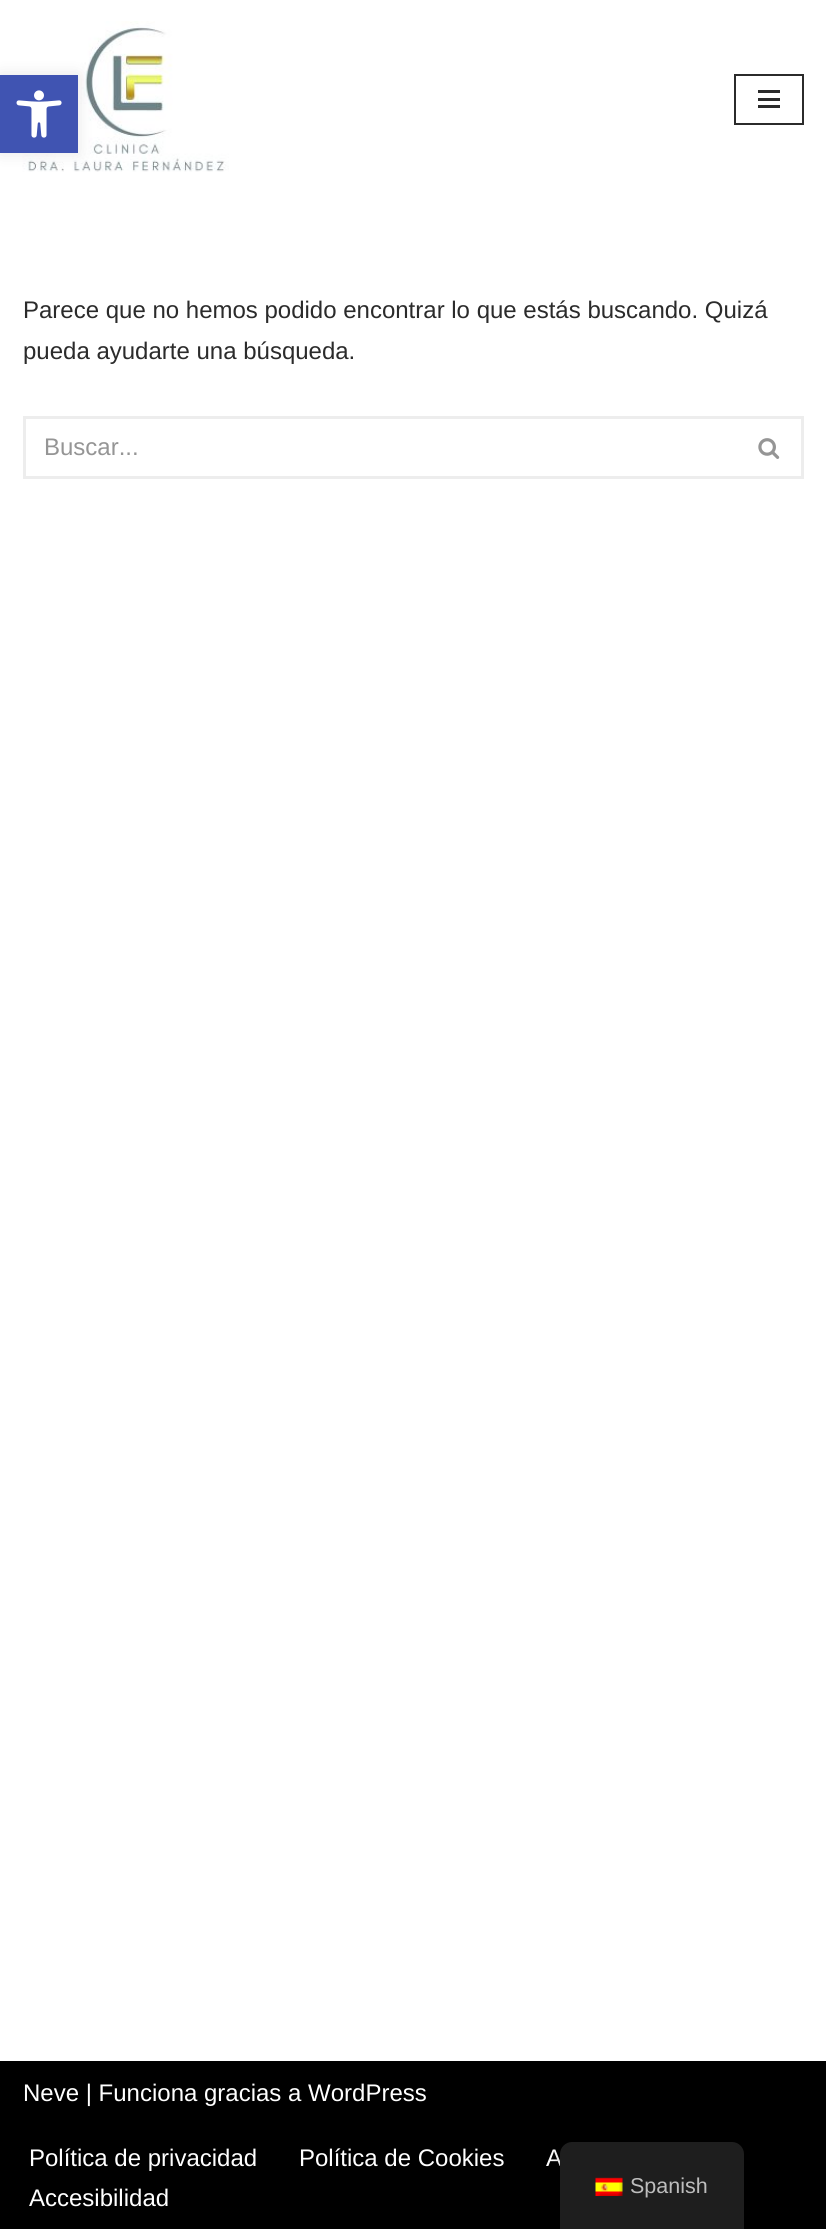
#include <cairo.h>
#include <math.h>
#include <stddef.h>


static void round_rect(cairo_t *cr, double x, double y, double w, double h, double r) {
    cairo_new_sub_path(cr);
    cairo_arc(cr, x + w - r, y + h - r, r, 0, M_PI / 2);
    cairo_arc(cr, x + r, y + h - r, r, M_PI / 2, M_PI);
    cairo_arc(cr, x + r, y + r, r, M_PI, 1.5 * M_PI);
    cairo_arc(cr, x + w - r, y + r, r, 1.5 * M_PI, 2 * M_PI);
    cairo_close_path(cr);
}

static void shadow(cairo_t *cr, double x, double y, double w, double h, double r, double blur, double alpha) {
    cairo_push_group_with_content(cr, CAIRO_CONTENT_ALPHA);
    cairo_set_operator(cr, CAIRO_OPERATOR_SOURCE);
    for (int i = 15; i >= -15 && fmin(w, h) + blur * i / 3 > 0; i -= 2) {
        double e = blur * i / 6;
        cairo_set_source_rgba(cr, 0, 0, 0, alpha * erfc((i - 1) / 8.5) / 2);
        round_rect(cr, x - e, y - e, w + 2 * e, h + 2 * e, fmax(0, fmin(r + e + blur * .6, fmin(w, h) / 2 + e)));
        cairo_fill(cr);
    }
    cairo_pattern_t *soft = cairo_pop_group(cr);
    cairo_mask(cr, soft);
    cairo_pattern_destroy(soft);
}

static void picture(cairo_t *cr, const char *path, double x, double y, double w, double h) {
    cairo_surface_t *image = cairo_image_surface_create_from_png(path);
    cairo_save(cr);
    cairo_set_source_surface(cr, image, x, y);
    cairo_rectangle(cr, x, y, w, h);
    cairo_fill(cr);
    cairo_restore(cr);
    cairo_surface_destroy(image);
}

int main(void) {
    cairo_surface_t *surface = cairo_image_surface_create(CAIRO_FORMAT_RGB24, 826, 2229);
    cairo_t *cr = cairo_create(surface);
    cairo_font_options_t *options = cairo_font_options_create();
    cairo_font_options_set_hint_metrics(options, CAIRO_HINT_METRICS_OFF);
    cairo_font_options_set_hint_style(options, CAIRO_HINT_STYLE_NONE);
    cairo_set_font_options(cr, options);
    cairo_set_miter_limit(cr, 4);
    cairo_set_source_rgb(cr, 1, 1, 1);
    cairo_paint(cr);
    picture(cr, "img2.png", 22, 21, 207, 151);
    cairo_set_source_rgb(cr, 0, 0, 0);
    shadow(cr, 0, 75, 78, 78, 0, 7.5, 0.1);
    cairo_set_source_rgb(cr, 0.251, 0.329, 0.698);
    cairo_rectangle(cr, 0, 75, 78, 78);
    cairo_fill(cr);
    picture(cr, "img1.png", 16, 90, 46, 48);
    cairo_rectangle(cr, 735, 75, 68, 49);
    cairo_set_source_rgb(cr, 0.169, 0.169, 0.169);
    cairo_stroke(cr);
    cairo_rectangle(cr, 758, 90, 22, 3);
    cairo_fill(cr);
    cairo_rectangle(cr, 758, 98, 22, 3);
    cairo_fill(cr);
    cairo_rectangle(cr, 758, 105, 22, 3);
    cairo_fill(cr);
    cairo_select_font_face(cr, "Liberation Sans", CAIRO_FONT_SLANT_NORMAL, CAIRO_FONT_WEIGHT_NORMAL);
    cairo_set_font_size(cr, 24);
    cairo_move_to(cr, 23, 318);
    cairo_show_text(cr, "Parece que no hemos podido encontrar lo que estás buscando. Quizá");
    cairo_move_to(cr, 23, 359);
    cairo_show_text(cr, "pueda ayudarte una búsqueda.");
    cairo_set_source_rgb(cr, 0.929, 0.929, 0.929);
    cairo_rectangle(cr, 23, 416, 781, 3);
    cairo_fill(cr);
    cairo_rectangle(cr, 23, 476, 714, 3);
    cairo_fill(cr);
    cairo_rectangle(cr, 23, 416, 3, 63);
    cairo_fill(cr);
    cairo_set_source_rgb(cr, 0.584, 0.584, 0.584);
    cairo_move_to(cr, 44, 455);
    cairo_show_text(cr, "Buscar...");
    cairo_set_source_rgb(cr, 0.929, 0.929, 0.929);
    cairo_rectangle(cr, 801, 416, 3, 63);
    cairo_fill(cr);
    cairo_rectangle(cr, 737, 476, 67, 3);
    cairo_fill(cr);
    picture(cr, "img3.png", 758, 438, 22, 21);
    cairo_set_source_rgb(cr, 0, 0, 0);
    cairo_rectangle(cr, 0, 2061, 826, 168);
    cairo_fill(cr);
    cairo_set_source_rgb(cr, 1, 1, 1);
    cairo_move_to(cr, 23, 2101);
    cairo_show_text(cr, "Neve | Funciona gracias a WordPress");
    cairo_move_to(cr, 29, 2166);
    cairo_show_text(cr, "Política de privacidad");
    cairo_move_to(cr, 299, 2166);
    cairo_show_text(cr, "Política de Cookies");
    cairo_move_to(cr, 546, 2166);
    cairo_show_text(cr, "A");
    cairo_move_to(cr, 29, 2206);
    cairo_show_text(cr, "Accesibilidad");
    cairo_set_source_rgb(cr, 0, 0, 0);
    shadow(cr, 560, 2142, 184, 87, 12, 6, 0.25);
    cairo_set_source_rgb(cr, 0.118, 0.118, 0.118);
    cairo_new_path(cr);
    cairo_move_to(cr, 572, 2142);
    cairo_line_to(cr, 732, 2142);
    cairo_curve_to(cr, 738.5, 2142, 744, 2147.5, 744, 2154);
    cairo_line_to(cr, 744, 2229);
    cairo_line_to(cr, 560, 2229);
    cairo_line_to(cr, 560, 2154);
    cairo_curve_to(cr, 560, 2147.5, 565.5, 2142, 572, 2142);
    cairo_close_path(cr);
    cairo_fill(cr);
    picture(cr, "img4.png", 595, 2177, 28, 19);
    cairo_set_font_size(cr, 21.5);
    cairo_set_source_rgb(cr, 0.741, 0.741, 0.741);
    cairo_move_to(cr, 630, 2193);
    cairo_show_text(cr, "Spanish");
    cairo_surface_write_to_png(surface, "page.png");
    cairo_font_options_destroy(options);
    cairo_destroy(cr);
    cairo_surface_destroy(surface);
    return 0;
}
